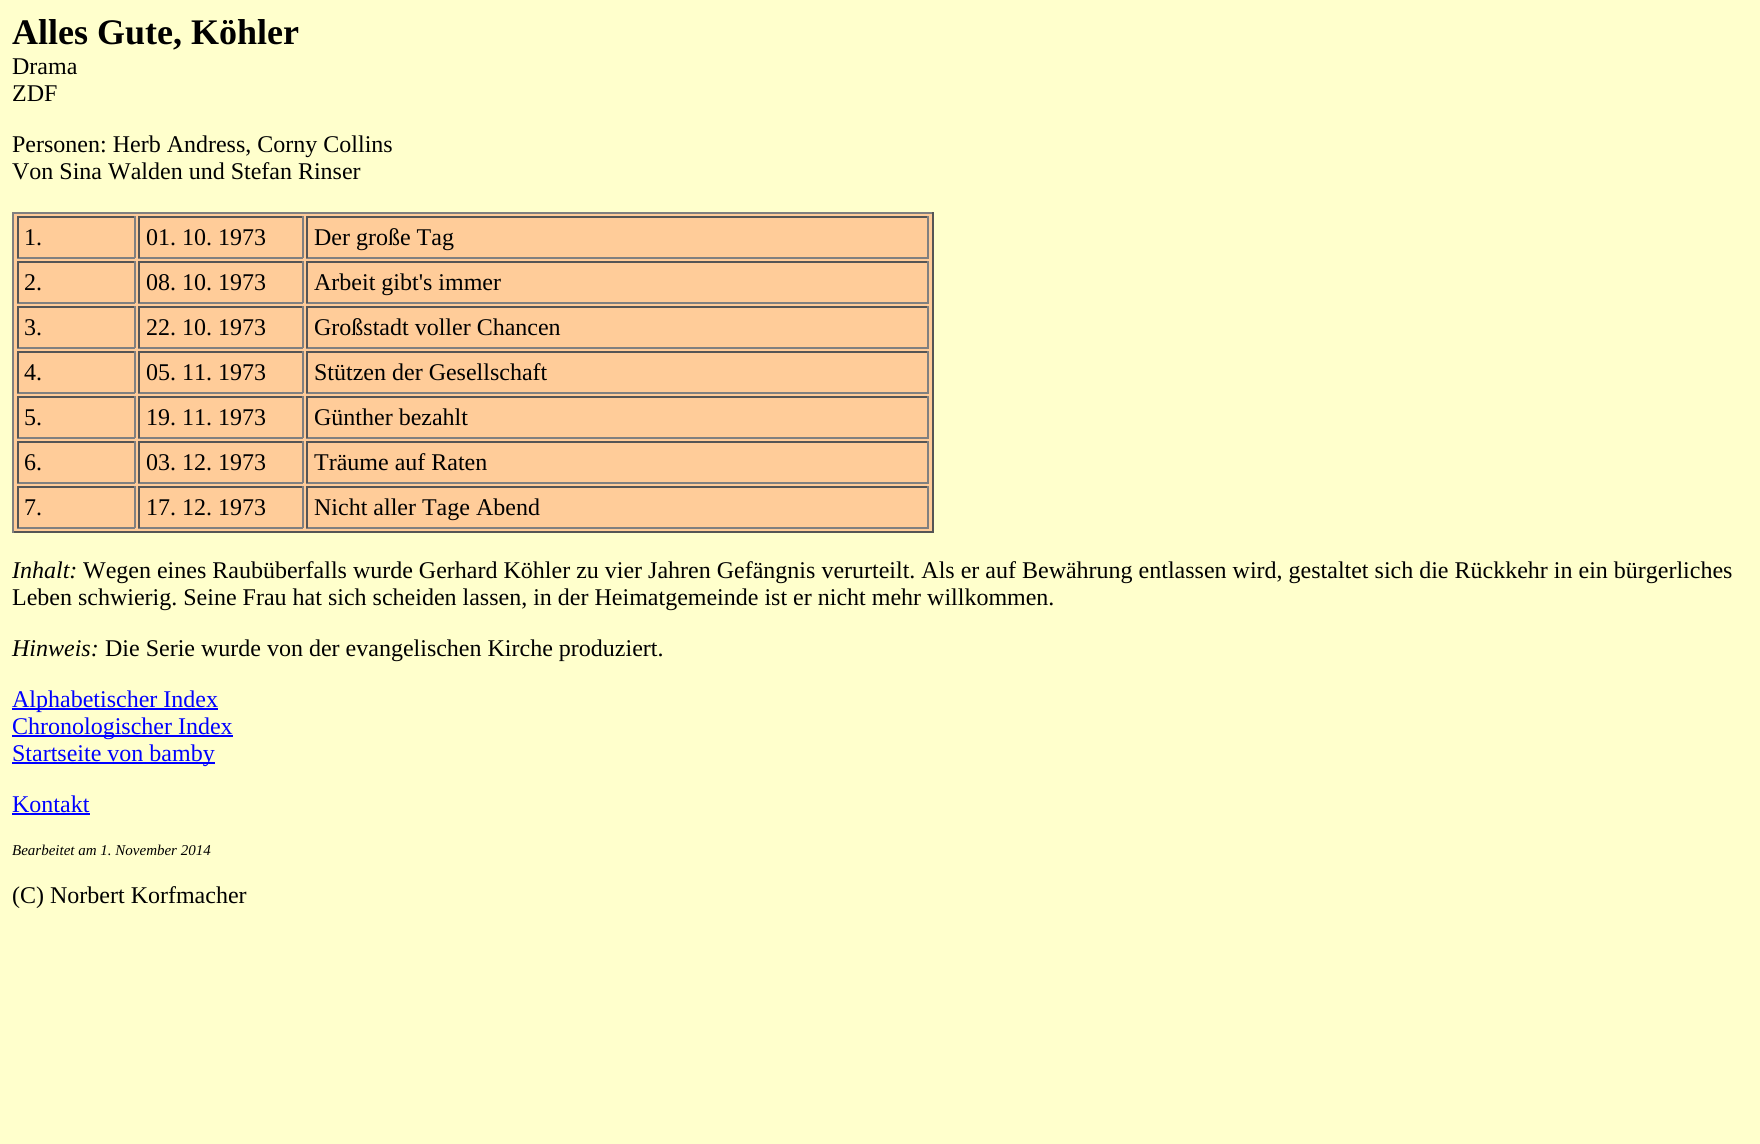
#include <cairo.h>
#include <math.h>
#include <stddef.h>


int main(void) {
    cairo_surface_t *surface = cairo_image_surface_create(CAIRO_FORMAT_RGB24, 1760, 1144);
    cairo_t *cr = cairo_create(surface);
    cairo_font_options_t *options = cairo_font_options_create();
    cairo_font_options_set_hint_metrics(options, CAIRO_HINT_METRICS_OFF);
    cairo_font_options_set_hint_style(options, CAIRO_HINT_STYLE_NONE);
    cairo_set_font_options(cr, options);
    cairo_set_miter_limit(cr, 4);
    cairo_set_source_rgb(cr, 1, 1, 0.8);
    cairo_paint(cr);
    cairo_select_font_face(cr, "Liberation Serif", CAIRO_FONT_SLANT_NORMAL, CAIRO_FONT_WEIGHT_BOLD);
    cairo_set_font_size(cr, 36);
    cairo_set_source_rgb(cr, 0, 0, 0);
    cairo_move_to(cr, 12, 44);
    cairo_show_text(cr, "Alles Gute, Köhler");
    cairo_select_font_face(cr, "Liberation Serif", CAIRO_FONT_SLANT_NORMAL, CAIRO_FONT_WEIGHT_NORMAL);
    cairo_set_font_size(cr, 24);
    cairo_move_to(cr, 12, 74);
    cairo_show_text(cr, "Drama");
    cairo_move_to(cr, 12, 101);
    cairo_show_text(cr, "ZDF");
    cairo_move_to(cr, 12, 152);
    cairo_show_text(cr, "Personen: Herb Andress, Corny Collins");
    cairo_move_to(cr, 12, 179);
    cairo_show_text(cr, "Von Sina Walden und Stefan Rinser");
    cairo_set_source_rgb(cr, 1, 0.8, 0.6);
    cairo_rectangle(cr, 14, 214, 918, 317);
    cairo_fill(cr);
    cairo_set_source_rgb(cr, 0.502, 0.502, 0.502);
    cairo_rectangle(cr, 12, 212, 921, 2);
    cairo_fill(cr);
    cairo_set_source_rgb(cr, 0.333, 0.333, 0.333);
    cairo_rectangle(cr, 932, 212, 2, 321);
    cairo_fill(cr);
    cairo_rectangle(cr, 12, 531, 921, 2);
    cairo_fill(cr);
    cairo_set_source_rgb(cr, 0.502, 0.502, 0.502);
    cairo_rectangle(cr, 12, 212, 2, 321);
    cairo_fill(cr);
    cairo_set_source_rgb(cr, 0.333, 0.333, 0.333);
    cairo_rectangle(cr, 17, 216, 118, 2);
    cairo_fill(cr);
    cairo_set_source_rgb(cr, 0.502, 0.502, 0.502);
    cairo_rectangle(cr, 134, 216, 2, 42);
    cairo_fill(cr);
    cairo_rectangle(cr, 17, 257, 118, 2);
    cairo_fill(cr);
    cairo_set_source_rgb(cr, 0.333, 0.333, 0.333);
    cairo_rectangle(cr, 17, 216, 2, 42);
    cairo_fill(cr);
    cairo_set_source_rgb(cr, 0, 0, 0);
    cairo_move_to(cr, 24, 245);
    cairo_show_text(cr, "1.");
    cairo_set_source_rgb(cr, 0.333, 0.333, 0.333);
    cairo_rectangle(cr, 138, 216, 165, 2);
    cairo_fill(cr);
    cairo_set_source_rgb(cr, 0.502, 0.502, 0.502);
    cairo_rectangle(cr, 302, 216, 2, 42);
    cairo_fill(cr);
    cairo_rectangle(cr, 138, 257, 165, 2);
    cairo_fill(cr);
    cairo_set_source_rgb(cr, 0.333, 0.333, 0.333);
    cairo_rectangle(cr, 138, 216, 2, 42);
    cairo_fill(cr);
    cairo_set_source_rgb(cr, 0, 0, 0);
    cairo_move_to(cr, 146, 245);
    cairo_show_text(cr, "01. 10. 1973");
    cairo_set_source_rgb(cr, 0.333, 0.333, 0.333);
    cairo_rectangle(cr, 306, 216, 623, 2);
    cairo_fill(cr);
    cairo_set_source_rgb(cr, 0.502, 0.502, 0.502);
    cairo_rectangle(cr, 927, 216, 2, 42);
    cairo_fill(cr);
    cairo_rectangle(cr, 306, 257, 623, 2);
    cairo_fill(cr);
    cairo_set_source_rgb(cr, 0.333, 0.333, 0.333);
    cairo_rectangle(cr, 306, 216, 2, 42);
    cairo_fill(cr);
    cairo_set_source_rgb(cr, 0, 0, 0);
    cairo_move_to(cr, 314, 245);
    cairo_show_text(cr, "Der große Tag");
    cairo_set_source_rgb(cr, 0.333, 0.333, 0.333);
    cairo_rectangle(cr, 17, 261, 118, 2);
    cairo_fill(cr);
    cairo_set_source_rgb(cr, 0.502, 0.502, 0.502);
    cairo_rectangle(cr, 134, 261, 2, 42);
    cairo_fill(cr);
    cairo_rectangle(cr, 17, 302, 118, 2);
    cairo_fill(cr);
    cairo_set_source_rgb(cr, 0.333, 0.333, 0.333);
    cairo_rectangle(cr, 17, 261, 2, 42);
    cairo_fill(cr);
    cairo_set_source_rgb(cr, 0, 0, 0);
    cairo_move_to(cr, 24, 290);
    cairo_show_text(cr, "2.");
    cairo_set_source_rgb(cr, 0.333, 0.333, 0.333);
    cairo_rectangle(cr, 138, 261, 165, 2);
    cairo_fill(cr);
    cairo_set_source_rgb(cr, 0.502, 0.502, 0.502);
    cairo_rectangle(cr, 302, 261, 2, 42);
    cairo_fill(cr);
    cairo_rectangle(cr, 138, 302, 165, 2);
    cairo_fill(cr);
    cairo_set_source_rgb(cr, 0.333, 0.333, 0.333);
    cairo_rectangle(cr, 138, 261, 2, 42);
    cairo_fill(cr);
    cairo_set_source_rgb(cr, 0, 0, 0);
    cairo_move_to(cr, 146, 290);
    cairo_show_text(cr, "08. 10. 1973");
    cairo_set_source_rgb(cr, 0.333, 0.333, 0.333);
    cairo_rectangle(cr, 306, 261, 623, 2);
    cairo_fill(cr);
    cairo_set_source_rgb(cr, 0.502, 0.502, 0.502);
    cairo_rectangle(cr, 927, 261, 2, 42);
    cairo_fill(cr);
    cairo_rectangle(cr, 306, 302, 623, 2);
    cairo_fill(cr);
    cairo_set_source_rgb(cr, 0.333, 0.333, 0.333);
    cairo_rectangle(cr, 306, 261, 2, 42);
    cairo_fill(cr);
    cairo_set_source_rgb(cr, 0, 0, 0);
    cairo_move_to(cr, 314, 290);
    cairo_show_text(cr, "Arbeit gibt's immer");
    cairo_set_source_rgb(cr, 0.333, 0.333, 0.333);
    cairo_rectangle(cr, 17, 306, 118, 2);
    cairo_fill(cr);
    cairo_set_source_rgb(cr, 0.502, 0.502, 0.502);
    cairo_rectangle(cr, 134, 306, 2, 42);
    cairo_fill(cr);
    cairo_rectangle(cr, 17, 347, 118, 2);
    cairo_fill(cr);
    cairo_set_source_rgb(cr, 0.333, 0.333, 0.333);
    cairo_rectangle(cr, 17, 306, 2, 42);
    cairo_fill(cr);
    cairo_set_source_rgb(cr, 0, 0, 0);
    cairo_move_to(cr, 24, 335);
    cairo_show_text(cr, "3.");
    cairo_set_source_rgb(cr, 0.333, 0.333, 0.333);
    cairo_rectangle(cr, 138, 306, 165, 2);
    cairo_fill(cr);
    cairo_set_source_rgb(cr, 0.502, 0.502, 0.502);
    cairo_rectangle(cr, 302, 306, 2, 42);
    cairo_fill(cr);
    cairo_rectangle(cr, 138, 347, 165, 2);
    cairo_fill(cr);
    cairo_set_source_rgb(cr, 0.333, 0.333, 0.333);
    cairo_rectangle(cr, 138, 306, 2, 42);
    cairo_fill(cr);
    cairo_set_source_rgb(cr, 0, 0, 0);
    cairo_move_to(cr, 146, 335);
    cairo_show_text(cr, "22. 10. 1973");
    cairo_set_source_rgb(cr, 0.333, 0.333, 0.333);
    cairo_rectangle(cr, 306, 306, 623, 2);
    cairo_fill(cr);
    cairo_set_source_rgb(cr, 0.502, 0.502, 0.502);
    cairo_rectangle(cr, 927, 306, 2, 42);
    cairo_fill(cr);
    cairo_rectangle(cr, 306, 347, 623, 2);
    cairo_fill(cr);
    cairo_set_source_rgb(cr, 0.333, 0.333, 0.333);
    cairo_rectangle(cr, 306, 306, 2, 42);
    cairo_fill(cr);
    cairo_set_source_rgb(cr, 0, 0, 0);
    cairo_move_to(cr, 314, 335);
    cairo_show_text(cr, "Großstadt voller Chancen");
    cairo_set_source_rgb(cr, 0.333, 0.333, 0.333);
    cairo_rectangle(cr, 17, 351, 118, 2);
    cairo_fill(cr);
    cairo_set_source_rgb(cr, 0.502, 0.502, 0.502);
    cairo_rectangle(cr, 134, 351, 2, 42);
    cairo_fill(cr);
    cairo_rectangle(cr, 17, 392, 118, 2);
    cairo_fill(cr);
    cairo_set_source_rgb(cr, 0.333, 0.333, 0.333);
    cairo_rectangle(cr, 17, 351, 2, 42);
    cairo_fill(cr);
    cairo_set_source_rgb(cr, 0, 0, 0);
    cairo_move_to(cr, 24, 380);
    cairo_show_text(cr, "4.");
    cairo_set_source_rgb(cr, 0.333, 0.333, 0.333);
    cairo_rectangle(cr, 138, 351, 165, 2);
    cairo_fill(cr);
    cairo_set_source_rgb(cr, 0.502, 0.502, 0.502);
    cairo_rectangle(cr, 302, 351, 2, 42);
    cairo_fill(cr);
    cairo_rectangle(cr, 138, 392, 165, 2);
    cairo_fill(cr);
    cairo_set_source_rgb(cr, 0.333, 0.333, 0.333);
    cairo_rectangle(cr, 138, 351, 2, 42);
    cairo_fill(cr);
    cairo_set_source_rgb(cr, 0, 0, 0);
    cairo_move_to(cr, 146, 380);
    cairo_show_text(cr, "05. 11. 1973");
    cairo_set_source_rgb(cr, 0.333, 0.333, 0.333);
    cairo_rectangle(cr, 306, 351, 623, 2);
    cairo_fill(cr);
    cairo_set_source_rgb(cr, 0.502, 0.502, 0.502);
    cairo_rectangle(cr, 927, 351, 2, 42);
    cairo_fill(cr);
    cairo_rectangle(cr, 306, 392, 623, 2);
    cairo_fill(cr);
    cairo_set_source_rgb(cr, 0.333, 0.333, 0.333);
    cairo_rectangle(cr, 306, 351, 2, 42);
    cairo_fill(cr);
    cairo_set_source_rgb(cr, 0, 0, 0);
    cairo_move_to(cr, 314, 380);
    cairo_show_text(cr, "Stützen der Gesellschaft");
    cairo_set_source_rgb(cr, 0.333, 0.333, 0.333);
    cairo_rectangle(cr, 17, 396, 118, 2);
    cairo_fill(cr);
    cairo_set_source_rgb(cr, 0.502, 0.502, 0.502);
    cairo_rectangle(cr, 134, 396, 2, 42);
    cairo_fill(cr);
    cairo_rectangle(cr, 17, 437, 118, 2);
    cairo_fill(cr);
    cairo_set_source_rgb(cr, 0.333, 0.333, 0.333);
    cairo_rectangle(cr, 17, 396, 2, 42);
    cairo_fill(cr);
    cairo_set_source_rgb(cr, 0, 0, 0);
    cairo_move_to(cr, 24, 425);
    cairo_show_text(cr, "5.");
    cairo_set_source_rgb(cr, 0.333, 0.333, 0.333);
    cairo_rectangle(cr, 138, 396, 165, 2);
    cairo_fill(cr);
    cairo_set_source_rgb(cr, 0.502, 0.502, 0.502);
    cairo_rectangle(cr, 302, 396, 2, 42);
    cairo_fill(cr);
    cairo_rectangle(cr, 138, 437, 165, 2);
    cairo_fill(cr);
    cairo_set_source_rgb(cr, 0.333, 0.333, 0.333);
    cairo_rectangle(cr, 138, 396, 2, 42);
    cairo_fill(cr);
    cairo_set_source_rgb(cr, 0, 0, 0);
    cairo_move_to(cr, 146, 425);
    cairo_show_text(cr, "19. 11. 1973");
    cairo_set_source_rgb(cr, 0.333, 0.333, 0.333);
    cairo_rectangle(cr, 306, 396, 623, 2);
    cairo_fill(cr);
    cairo_set_source_rgb(cr, 0.502, 0.502, 0.502);
    cairo_rectangle(cr, 927, 396, 2, 42);
    cairo_fill(cr);
    cairo_rectangle(cr, 306, 437, 623, 2);
    cairo_fill(cr);
    cairo_set_source_rgb(cr, 0.333, 0.333, 0.333);
    cairo_rectangle(cr, 306, 396, 2, 42);
    cairo_fill(cr);
    cairo_set_source_rgb(cr, 0, 0, 0);
    cairo_move_to(cr, 314, 425);
    cairo_show_text(cr, "Günther bezahlt");
    cairo_set_source_rgb(cr, 0.333, 0.333, 0.333);
    cairo_rectangle(cr, 17, 441, 118, 2);
    cairo_fill(cr);
    cairo_set_source_rgb(cr, 0.502, 0.502, 0.502);
    cairo_rectangle(cr, 134, 441, 2, 42);
    cairo_fill(cr);
    cairo_rectangle(cr, 17, 482, 118, 2);
    cairo_fill(cr);
    cairo_set_source_rgb(cr, 0.333, 0.333, 0.333);
    cairo_rectangle(cr, 17, 441, 2, 42);
    cairo_fill(cr);
    cairo_set_source_rgb(cr, 0, 0, 0);
    cairo_move_to(cr, 24, 470);
    cairo_show_text(cr, "6.");
    cairo_set_source_rgb(cr, 0.333, 0.333, 0.333);
    cairo_rectangle(cr, 138, 441, 165, 2);
    cairo_fill(cr);
    cairo_set_source_rgb(cr, 0.502, 0.502, 0.502);
    cairo_rectangle(cr, 302, 441, 2, 42);
    cairo_fill(cr);
    cairo_rectangle(cr, 138, 482, 165, 2);
    cairo_fill(cr);
    cairo_set_source_rgb(cr, 0.333, 0.333, 0.333);
    cairo_rectangle(cr, 138, 441, 2, 42);
    cairo_fill(cr);
    cairo_set_source_rgb(cr, 0, 0, 0);
    cairo_move_to(cr, 146, 470);
    cairo_show_text(cr, "03. 12. 1973");
    cairo_set_source_rgb(cr, 0.333, 0.333, 0.333);
    cairo_rectangle(cr, 306, 441, 623, 2);
    cairo_fill(cr);
    cairo_set_source_rgb(cr, 0.502, 0.502, 0.502);
    cairo_rectangle(cr, 927, 441, 2, 42);
    cairo_fill(cr);
    cairo_rectangle(cr, 306, 482, 623, 2);
    cairo_fill(cr);
    cairo_set_source_rgb(cr, 0.333, 0.333, 0.333);
    cairo_rectangle(cr, 306, 441, 2, 42);
    cairo_fill(cr);
    cairo_set_source_rgb(cr, 0, 0, 0);
    cairo_move_to(cr, 314, 470);
    cairo_show_text(cr, "Träume auf Raten");
    cairo_set_source_rgb(cr, 0.333, 0.333, 0.333);
    cairo_rectangle(cr, 17, 486, 118, 2);
    cairo_fill(cr);
    cairo_set_source_rgb(cr, 0.502, 0.502, 0.502);
    cairo_rectangle(cr, 134, 486, 2, 42);
    cairo_fill(cr);
    cairo_rectangle(cr, 17, 527, 118, 2);
    cairo_fill(cr);
    cairo_set_source_rgb(cr, 0.333, 0.333, 0.333);
    cairo_rectangle(cr, 17, 486, 2, 42);
    cairo_fill(cr);
    cairo_set_source_rgb(cr, 0, 0, 0);
    cairo_move_to(cr, 24, 515);
    cairo_show_text(cr, "7.");
    cairo_set_source_rgb(cr, 0.333, 0.333, 0.333);
    cairo_rectangle(cr, 138, 486, 165, 2);
    cairo_fill(cr);
    cairo_set_source_rgb(cr, 0.502, 0.502, 0.502);
    cairo_rectangle(cr, 302, 486, 2, 42);
    cairo_fill(cr);
    cairo_rectangle(cr, 138, 527, 165, 2);
    cairo_fill(cr);
    cairo_set_source_rgb(cr, 0.333, 0.333, 0.333);
    cairo_rectangle(cr, 138, 486, 2, 42);
    cairo_fill(cr);
    cairo_set_source_rgb(cr, 0, 0, 0);
    cairo_move_to(cr, 146, 515);
    cairo_show_text(cr, "17. 12. 1973");
    cairo_set_source_rgb(cr, 0.333, 0.333, 0.333);
    cairo_rectangle(cr, 306, 486, 623, 2);
    cairo_fill(cr);
    cairo_set_source_rgb(cr, 0.502, 0.502, 0.502);
    cairo_rectangle(cr, 927, 486, 2, 42);
    cairo_fill(cr);
    cairo_rectangle(cr, 306, 527, 623, 2);
    cairo_fill(cr);
    cairo_set_source_rgb(cr, 0.333, 0.333, 0.333);
    cairo_rectangle(cr, 306, 486, 2, 42);
    cairo_fill(cr);
    cairo_set_source_rgb(cr, 0, 0, 0);
    cairo_move_to(cr, 314, 515);
    cairo_show_text(cr, "Nicht aller Tage Abend");
    cairo_select_font_face(cr, "Liberation Serif", CAIRO_FONT_SLANT_ITALIC, CAIRO_FONT_WEIGHT_NORMAL);
    cairo_move_to(cr, 12, 578);
    cairo_show_text(cr, "Inhalt:");
    cairo_select_font_face(cr, "Liberation Serif", CAIRO_FONT_SLANT_NORMAL, CAIRO_FONT_WEIGHT_NORMAL);
    cairo_move_to(cr, 83, 578);
    cairo_show_text(cr, "Wegen eines Raubüberfalls wurde Gerhard Köhler zu vier Jahren Gefängnis verurteilt. Als er auf Bewährung entlassen wird, gestaltet sich die Rückkehr in ein bürgerliches");
    cairo_move_to(cr, 12, 605);
    cairo_show_text(cr, "Leben schwierig. Seine Frau hat sich scheiden lassen, in der Heimatgemeinde ist er nicht mehr willkommen.");
    cairo_select_font_face(cr, "Liberation Serif", CAIRO_FONT_SLANT_ITALIC, CAIRO_FONT_WEIGHT_NORMAL);
    cairo_move_to(cr, 12, 656);
    cairo_show_text(cr, "Hinweis:");
    cairo_select_font_face(cr, "Liberation Serif", CAIRO_FONT_SLANT_NORMAL, CAIRO_FONT_WEIGHT_NORMAL);
    cairo_move_to(cr, 105, 656);
    cairo_show_text(cr, "Die Serie wurde von der evangelischen Kirche produziert.");
    cairo_set_source_rgb(cr, 0, 0, 1);
    cairo_rectangle(cr, 12, 708, 206, 2);
    cairo_fill(cr);
    cairo_move_to(cr, 12, 707);
    cairo_show_text(cr, "Alphabetischer Index");
    cairo_rectangle(cr, 12, 735, 221, 2);
    cairo_fill(cr);
    cairo_move_to(cr, 12, 734);
    cairo_show_text(cr, "Chronologischer Index");
    cairo_rectangle(cr, 12, 762, 203, 2);
    cairo_fill(cr);
    cairo_move_to(cr, 12, 761);
    cairo_show_text(cr, "Startseite von bamby");
    cairo_move_to(cr, 12, 812);
    cairo_show_text(cr, "Kontakt");
    cairo_rectangle(cr, 12, 813, 78, 2);
    cairo_fill(cr);
    cairo_select_font_face(cr, "Liberation Serif", CAIRO_FONT_SLANT_ITALIC, CAIRO_FONT_WEIGHT_NORMAL);
    cairo_set_font_size(cr, 15);
    cairo_set_source_rgb(cr, 0, 0, 0);
    cairo_move_to(cr, 12, 855);
    cairo_show_text(cr, "Bearbeitet am 1. November 2014");
    cairo_select_font_face(cr, "Liberation Serif", CAIRO_FONT_SLANT_NORMAL, CAIRO_FONT_WEIGHT_NORMAL);
    cairo_set_font_size(cr, 24);
    cairo_move_to(cr, 12, 903);
    cairo_show_text(cr, "(C) Norbert Korfmacher");
    cairo_surface_write_to_png(surface, "page.png");
    cairo_font_options_destroy(options);
    cairo_destroy(cr);
    cairo_surface_destroy(surface);
    return 0;
}
